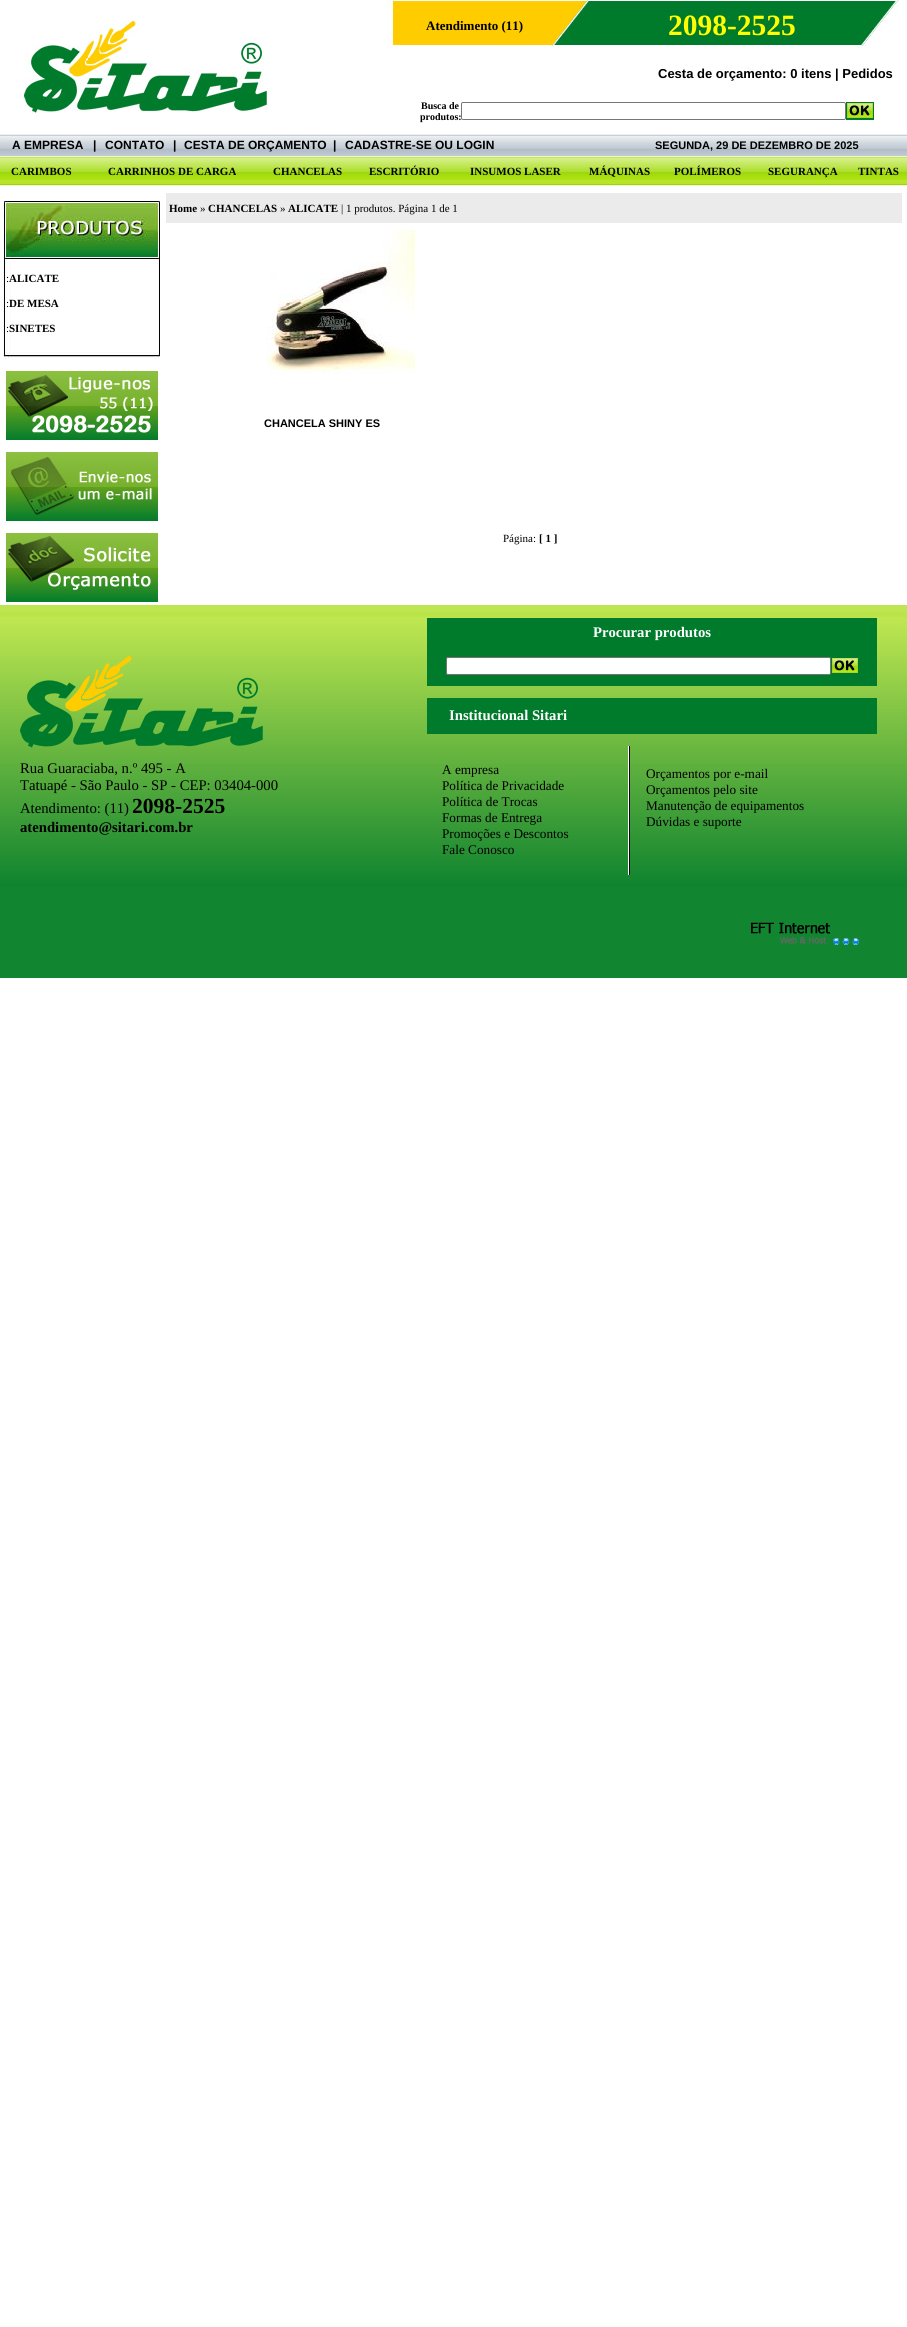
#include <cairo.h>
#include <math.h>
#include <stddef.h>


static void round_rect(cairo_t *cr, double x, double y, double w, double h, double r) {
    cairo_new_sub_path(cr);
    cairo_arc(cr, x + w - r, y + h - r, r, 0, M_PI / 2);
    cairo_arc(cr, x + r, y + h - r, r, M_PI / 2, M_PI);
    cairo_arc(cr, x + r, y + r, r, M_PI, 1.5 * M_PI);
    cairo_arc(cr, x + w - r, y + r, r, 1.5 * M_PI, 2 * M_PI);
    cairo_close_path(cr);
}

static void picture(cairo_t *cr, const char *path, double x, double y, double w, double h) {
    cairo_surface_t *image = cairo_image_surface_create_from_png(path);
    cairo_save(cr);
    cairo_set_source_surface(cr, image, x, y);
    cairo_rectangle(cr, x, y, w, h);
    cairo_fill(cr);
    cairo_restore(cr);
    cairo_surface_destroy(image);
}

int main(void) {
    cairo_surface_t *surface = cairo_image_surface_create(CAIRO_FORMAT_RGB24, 907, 2327);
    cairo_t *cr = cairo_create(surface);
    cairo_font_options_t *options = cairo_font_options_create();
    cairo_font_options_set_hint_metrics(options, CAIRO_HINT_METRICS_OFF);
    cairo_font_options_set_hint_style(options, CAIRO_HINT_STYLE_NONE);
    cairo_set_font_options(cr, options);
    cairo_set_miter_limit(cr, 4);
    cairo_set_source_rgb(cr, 1, 1, 1);
    cairo_paint(cr);
    picture(cr, "img1.png", 24, 21, 244, 92);
    picture(cr, "img2.png", 387, 0, 512, 48);
    cairo_select_font_face(cr, "Liberation Serif", CAIRO_FONT_SLANT_NORMAL, CAIRO_FONT_WEIGHT_BOLD);
    cairo_set_font_size(cr, 13);
    cairo_set_source_rgb(cr, 0, 0, 0);
    cairo_move_to(cr, 426, 30);
    cairo_show_text(cr, "Atendimento (11)");
    cairo_set_font_size(cr, 29.5);
    cairo_set_source_rgb(cr, 1, 1, 0);
    cairo_move_to(cr, 668, 35);
    cairo_show_text(cr, "2098-2525");
    cairo_select_font_face(cr, "Liberation Sans", CAIRO_FONT_SLANT_NORMAL, CAIRO_FONT_WEIGHT_BOLD);
    cairo_set_font_size(cr, 13);
    cairo_set_source_rgb(cr, 0, 0, 0);
    cairo_move_to(cr, 658, 78);
    cairo_show_text(cr, "Cesta de orçamento: 0 itens | Pedidos");
    cairo_select_font_face(cr, "Liberation Serif", CAIRO_FONT_SLANT_NORMAL, CAIRO_FONT_WEIGHT_BOLD);
    cairo_set_font_size(cr, 10);
    cairo_move_to(cr, 421, 109);
    cairo_show_text(cr, "Busca de");
    cairo_move_to(cr, 420, 120);
    cairo_show_text(cr, "produtos:");
    round_rect(cr, 461.5, 102.5, 384, 17, 1.5);
    cairo_set_source_rgb(cr, 0.463, 0.463, 0.463);
    cairo_set_line_width(cr, 1);
    cairo_stroke(cr);
    picture(cr, "img3.png", 846, 102, 28, 18);
    picture(cr, "img4.png", 0, 134, 907, 22);
    cairo_select_font_face(cr, "Liberation Sans", CAIRO_FONT_SLANT_NORMAL, CAIRO_FONT_WEIGHT_BOLD);
    cairo_set_font_size(cr, 12);
    cairo_set_source_rgb(cr, 0, 0, 0);
    cairo_move_to(cr, 12, 149);
    cairo_show_text(cr, "A EMPRESA");
    cairo_move_to(cr, 93, 149);
    cairo_show_text(cr, "|");
    cairo_move_to(cr, 105, 149);
    cairo_show_text(cr, "CONTATO");
    cairo_move_to(cr, 173, 149);
    cairo_show_text(cr, "|");
    cairo_move_to(cr, 184, 149);
    cairo_show_text(cr, "CESTA DE ORÇAMENTO");
    cairo_move_to(cr, 333, 149);
    cairo_show_text(cr, "|");
    cairo_move_to(cr, 345, 149);
    cairo_show_text(cr, "CADASTRE-SE OU LOGIN");
    cairo_set_font_size(cr, 11);
    cairo_move_to(cr, 655, 149);
    cairo_show_text(cr, "SEGUNDA, 29 DE DEZEMBRO DE 2025");
    picture(cr, "img5.png", 0, 156, 907, 30);
    cairo_select_font_face(cr, "Liberation Serif", CAIRO_FONT_SLANT_NORMAL, CAIRO_FONT_WEIGHT_BOLD);
    cairo_move_to(cr, 11, 175);
    cairo_show_text(cr, "CARIMBOS");
    cairo_move_to(cr, 108, 175);
    cairo_show_text(cr, "CARRINHOS DE CARGA");
    cairo_move_to(cr, 273, 175);
    cairo_show_text(cr, "CHANCELAS");
    cairo_move_to(cr, 369, 175);
    cairo_show_text(cr, "ESCRITÓRIO");
    cairo_move_to(cr, 470, 175);
    cairo_show_text(cr, "INSUMOS LASER");
    cairo_move_to(cr, 589, 175);
    cairo_show_text(cr, "MÁQUINAS");
    cairo_move_to(cr, 674, 175);
    cairo_show_text(cr, "POLÍMEROS");
    cairo_move_to(cr, 768, 175);
    cairo_show_text(cr, "SEGURANÇA");
    cairo_move_to(cr, 858, 175);
    cairo_show_text(cr, "TINTAS");
    picture(cr, "img6.png", 3, 201, 157, 59);
    picture(cr, "img7.png", 3, 260, 157, 5);
    picture(cr, "img8.png", 3, 265, 157, 25);
    cairo_select_font_face(cr, "Liberation Serif", CAIRO_FONT_SLANT_NORMAL, CAIRO_FONT_WEIGHT_NORMAL);
    cairo_move_to(cr, 6, 282);
    cairo_show_text(cr, ":");
    cairo_select_font_face(cr, "Liberation Serif", CAIRO_FONT_SLANT_NORMAL, CAIRO_FONT_WEIGHT_BOLD);
    cairo_move_to(cr, 9, 282);
    cairo_show_text(cr, "ALICATE");
    picture(cr, "img8.png", 3, 290, 157, 25);
    cairo_select_font_face(cr, "Liberation Serif", CAIRO_FONT_SLANT_NORMAL, CAIRO_FONT_WEIGHT_NORMAL);
    cairo_move_to(cr, 6, 307);
    cairo_show_text(cr, ":");
    cairo_select_font_face(cr, "Liberation Serif", CAIRO_FONT_SLANT_NORMAL, CAIRO_FONT_WEIGHT_BOLD);
    cairo_move_to(cr, 9, 307);
    cairo_show_text(cr, "DE MESA");
    picture(cr, "img8.png", 3, 315, 157, 25);
    cairo_select_font_face(cr, "Liberation Serif", CAIRO_FONT_SLANT_NORMAL, CAIRO_FONT_WEIGHT_NORMAL);
    cairo_move_to(cr, 6, 332);
    cairo_show_text(cr, ":");
    cairo_select_font_face(cr, "Liberation Serif", CAIRO_FONT_SLANT_NORMAL, CAIRO_FONT_WEIGHT_BOLD);
    cairo_move_to(cr, 9, 332);
    cairo_show_text(cr, "SINETES");
    picture(cr, "img9.png", 3, 340, 157, 12);
    picture(cr, "img10.png", 3, 352, 157, 7);
    picture(cr, "img11.png", 6, 371, 152, 69);
    picture(cr, "img12.png", 6, 452, 152, 69);
    picture(cr, "img13.png", 6, 533, 152, 69);
    cairo_set_source_rgb(cr, 0.918, 0.918, 0.918);
    cairo_rectangle(cr, 166, 193, 736, 30);
    cairo_fill(cr);
    cairo_set_source_rgb(cr, 0, 0, 0);
    cairo_move_to(cr, 169, 212);
    cairo_show_text(cr, "Home");
    cairo_select_font_face(cr, "Liberation Serif", CAIRO_FONT_SLANT_NORMAL, CAIRO_FONT_WEIGHT_NORMAL);
    cairo_move_to(cr, 200, 212);
    cairo_show_text(cr, "»");
    cairo_select_font_face(cr, "Liberation Serif", CAIRO_FONT_SLANT_NORMAL, CAIRO_FONT_WEIGHT_BOLD);
    cairo_move_to(cr, 208, 212);
    cairo_show_text(cr, "CHANCELAS");
    cairo_select_font_face(cr, "Liberation Serif", CAIRO_FONT_SLANT_NORMAL, CAIRO_FONT_WEIGHT_NORMAL);
    cairo_move_to(cr, 280, 212);
    cairo_show_text(cr, "»");
    cairo_select_font_face(cr, "Liberation Serif", CAIRO_FONT_SLANT_NORMAL, CAIRO_FONT_WEIGHT_BOLD);
    cairo_move_to(cr, 288, 212);
    cairo_show_text(cr, "ALICATE");
    cairo_select_font_face(cr, "Liberation Serif", CAIRO_FONT_SLANT_NORMAL, CAIRO_FONT_WEIGHT_NORMAL);
    cairo_move_to(cr, 341, 212);
    cairo_show_text(cr, "| 1 produtos. Página 1 de 1");
    picture(cr, "img14.png", 266, 230, 149, 144);
    cairo_select_font_face(cr, "Liberation Sans", CAIRO_FONT_SLANT_NORMAL, CAIRO_FONT_WEIGHT_BOLD);
    cairo_move_to(cr, 264, 427);
    cairo_show_text(cr, "CHANCELA SHINY ES");
    cairo_select_font_face(cr, "Liberation Serif", CAIRO_FONT_SLANT_NORMAL, CAIRO_FONT_WEIGHT_NORMAL);
    cairo_move_to(cr, 503, 542);
    cairo_show_text(cr, "Página:");
    cairo_select_font_face(cr, "Liberation Serif", CAIRO_FONT_SLANT_NORMAL, CAIRO_FONT_WEIGHT_BOLD);
    cairo_move_to(cr, 539, 542);
    cairo_show_text(cr, "[ 1 ]");
    picture(cr, "img15.png", 0, 605, 907, 282);
    picture(cr, "img16.png", 20, 656, 243, 92);
    cairo_select_font_face(cr, "Liberation Serif", CAIRO_FONT_SLANT_NORMAL, CAIRO_FONT_WEIGHT_NORMAL);
    cairo_set_font_size(cr, 14.7);
    cairo_move_to(cr, 20, 773);
    cairo_show_text(cr, "Rua Guaraciaba, n.º 495 - A");
    cairo_move_to(cr, 20, 790);
    cairo_show_text(cr, "Tatuapé - São Paulo - SP - CEP: 03404-000");
    cairo_move_to(cr, 20, 813);
    cairo_show_text(cr, "Atendimento: (11)");
    cairo_select_font_face(cr, "Liberation Serif", CAIRO_FONT_SLANT_NORMAL, CAIRO_FONT_WEIGHT_BOLD);
    cairo_set_font_size(cr, 21.5);
    cairo_move_to(cr, 132, 813);
    cairo_show_text(cr, "2098-2525");
    cairo_set_font_size(cr, 14.7);
    cairo_move_to(cr, 20, 832);
    cairo_show_text(cr, "atendimento@sitari.com.br");
    cairo_set_source_rgb(cr, 0, 0.482, 0.173);
    cairo_rectangle(cr, 427, 618, 450, 68);
    cairo_fill(cr);
    cairo_set_source_rgb(cr, 1, 1, 1);
    cairo_move_to(cr, 593, 637);
    cairo_show_text(cr, "Procurar produtos");
    round_rect(cr, 446.5, 657.5, 384, 17, 1.5);
    cairo_fill_preserve(cr);
    cairo_set_source_rgb(cr, 0.463, 0.463, 0.463);
    cairo_stroke(cr);
    picture(cr, "img17.png", 831, 657, 28, 16);
    cairo_set_source_rgb(cr, 0, 0.482, 0.173);
    cairo_rectangle(cr, 427, 698, 450, 36);
    cairo_fill(cr);
    cairo_set_source_rgb(cr, 1, 1, 1);
    cairo_move_to(cr, 449, 720);
    cairo_show_text(cr, "Institucional Sitari");
    cairo_select_font_face(cr, "Liberation Serif", CAIRO_FONT_SLANT_NORMAL, CAIRO_FONT_WEIGHT_NORMAL);
    cairo_set_font_size(cr, 13.25);
    cairo_set_source_rgb(cr, 0, 0, 0);
    cairo_move_to(cr, 442, 774);
    cairo_show_text(cr, "A empresa");
    cairo_move_to(cr, 442, 790);
    cairo_show_text(cr, "Política de Privacidade");
    cairo_move_to(cr, 442, 806);
    cairo_show_text(cr, "Política de Trocas");
    cairo_move_to(cr, 442, 822);
    cairo_show_text(cr, "Formas de Entrega");
    cairo_move_to(cr, 442, 838);
    cairo_show_text(cr, "Promoções e Descontos");
    cairo_move_to(cr, 442, 854);
    cairo_show_text(cr, "Fale Conosco");
    picture(cr, "img18.png", 628, 746, 2, 129);
    cairo_move_to(cr, 646, 778);
    cairo_show_text(cr, "Orçamentos por e-mail");
    cairo_move_to(cr, 646, 794);
    cairo_show_text(cr, "Orçamentos pelo site");
    cairo_move_to(cr, 646, 810);
    cairo_show_text(cr, "Manutenção de equipamentos");
    cairo_move_to(cr, 646, 826);
    cairo_show_text(cr, "Dúvidas e suporte");
    cairo_set_source_rgb(cr, 0.071, 0.522, 0.188);
    cairo_rectangle(cr, 0, 887, 907, 91);
    cairo_fill(cr);
    picture(cr, "img19.png", 751, 922, 108, 23);
    cairo_surface_write_to_png(surface, "page.png");
    cairo_font_options_destroy(options);
    cairo_destroy(cr);
    cairo_surface_destroy(surface);
    return 0;
}
